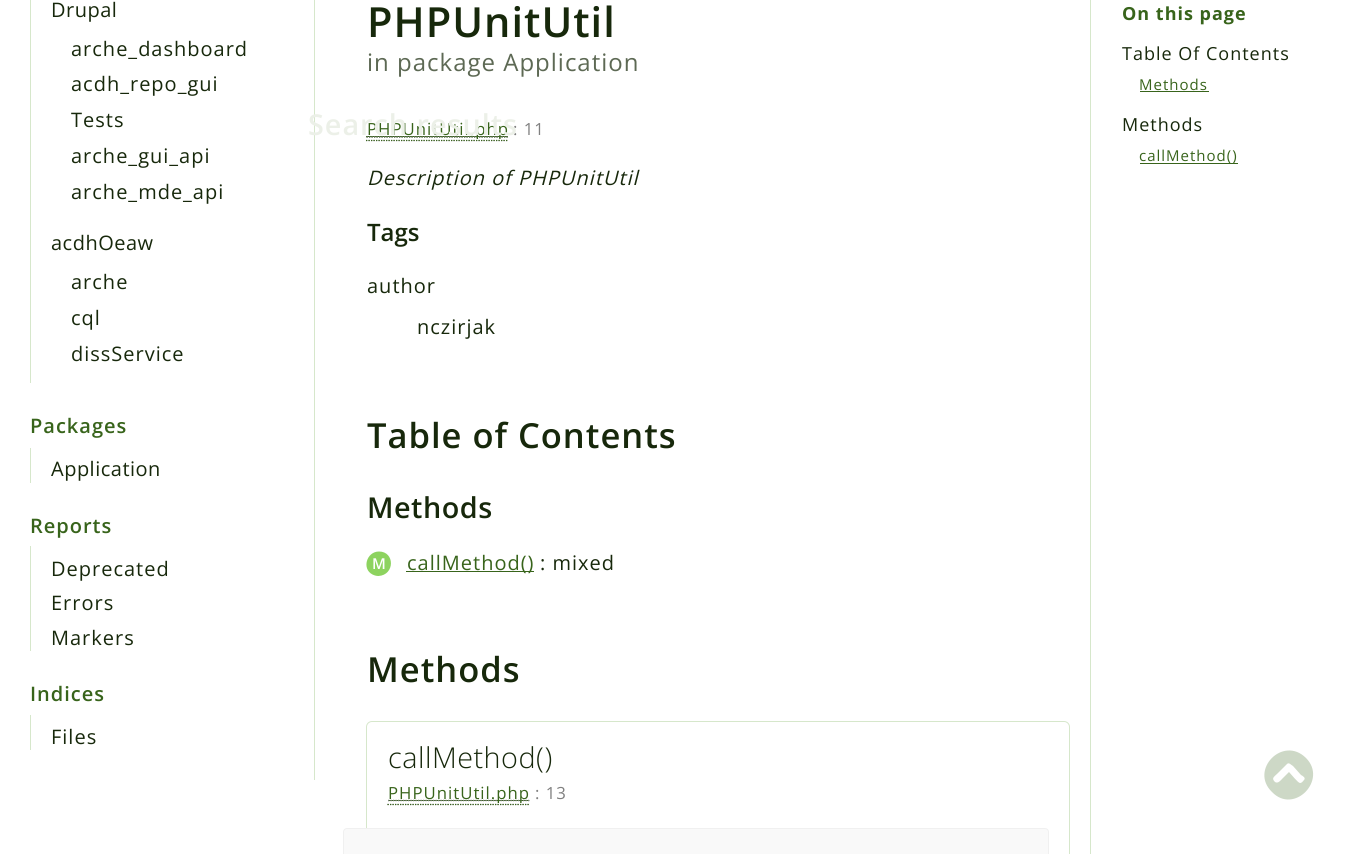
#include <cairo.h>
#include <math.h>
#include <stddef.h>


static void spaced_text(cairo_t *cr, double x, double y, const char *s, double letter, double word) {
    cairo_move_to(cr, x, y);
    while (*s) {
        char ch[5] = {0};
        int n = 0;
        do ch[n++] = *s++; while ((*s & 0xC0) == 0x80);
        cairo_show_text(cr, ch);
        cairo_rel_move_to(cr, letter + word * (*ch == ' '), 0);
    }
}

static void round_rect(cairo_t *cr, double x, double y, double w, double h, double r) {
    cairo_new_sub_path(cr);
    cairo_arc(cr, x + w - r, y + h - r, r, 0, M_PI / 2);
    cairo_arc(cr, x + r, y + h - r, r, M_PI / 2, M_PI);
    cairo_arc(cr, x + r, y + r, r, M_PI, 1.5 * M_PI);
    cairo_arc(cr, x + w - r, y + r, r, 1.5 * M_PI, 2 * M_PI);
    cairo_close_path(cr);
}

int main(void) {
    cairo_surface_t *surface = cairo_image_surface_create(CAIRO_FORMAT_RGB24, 1354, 854);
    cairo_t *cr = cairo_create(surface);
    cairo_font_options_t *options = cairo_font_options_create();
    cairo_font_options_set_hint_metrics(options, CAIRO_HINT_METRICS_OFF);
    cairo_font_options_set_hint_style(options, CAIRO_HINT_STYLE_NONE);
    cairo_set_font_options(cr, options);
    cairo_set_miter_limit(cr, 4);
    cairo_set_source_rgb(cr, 1, 1, 1);
    cairo_paint(cr);
    cairo_set_source_rgb(cr, 0.839, 0.906, 0.796);
    cairo_rectangle(cr, 314, 0, 1, 780);
    cairo_fill(cr);
    cairo_rectangle(cr, 30, 0, 1, 383);
    cairo_fill(cr);
    cairo_select_font_face(cr, "Open Sans", CAIRO_FONT_SLANT_NORMAL, CAIRO_FONT_WEIGHT_NORMAL);
    cairo_set_font_size(cr, 20);
    cairo_set_source_rgb(cr, 0.09, 0.157, 0.043);
    spaced_text(cr, 51, 17, "Drupal", 0.5, 0);
    spaced_text(cr, 71, 56, "arche_dashboard", 1, 0);
    spaced_text(cr, 71, 91, "acdh_repo_gui", 1, 0);
    spaced_text(cr, 71, 127, "Tests", 1, 0);
    spaced_text(cr, 71, 163, "arche_gui_api", 1, 0);
    spaced_text(cr, 71, 199, "arche_mde_api", 1, 0);
    spaced_text(cr, 51, 250, "acdhOeaw", 0.5, 0);
    spaced_text(cr, 71, 289, "arche", 1, 0);
    spaced_text(cr, 71, 325, "cql", 1, 0);
    spaced_text(cr, 71, 361, "dissService", 1, 0);
    cairo_select_font_face(cr, "Open Sans SemiBold", CAIRO_FONT_SLANT_NORMAL, CAIRO_FONT_WEIGHT_NORMAL);
    cairo_set_source_rgb(cr, 0.22, 0.392, 0.106);
    spaced_text(cr, 30, 433, "Packages", 1, 0);
    cairo_set_source_rgb(cr, 0.839, 0.906, 0.796);
    cairo_rectangle(cr, 30, 448, 1, 35);
    cairo_fill(cr);
    cairo_select_font_face(cr, "Open Sans", CAIRO_FONT_SLANT_NORMAL, CAIRO_FONT_WEIGHT_NORMAL);
    cairo_set_source_rgb(cr, 0.09, 0.157, 0.043);
    spaced_text(cr, 51, 476, "Application", 0.5, 0);
    cairo_select_font_face(cr, "Open Sans SemiBold", CAIRO_FONT_SLANT_NORMAL, CAIRO_FONT_WEIGHT_NORMAL);
    cairo_set_source_rgb(cr, 0.22, 0.392, 0.106);
    spaced_text(cr, 30, 533, "Reports", 1, 0);
    cairo_set_source_rgb(cr, 0.839, 0.906, 0.796);
    cairo_rectangle(cr, 30, 546, 1, 105);
    cairo_fill(cr);
    cairo_select_font_face(cr, "Open Sans", CAIRO_FONT_SLANT_NORMAL, CAIRO_FONT_WEIGHT_NORMAL);
    cairo_set_source_rgb(cr, 0.09, 0.157, 0.043);
    spaced_text(cr, 51, 576, "Deprecated", 1, 0);
    spaced_text(cr, 51, 610, "Errors", 1, 0);
    spaced_text(cr, 51, 645, "Markers", 1, 0);
    cairo_select_font_face(cr, "Open Sans SemiBold", CAIRO_FONT_SLANT_NORMAL, CAIRO_FONT_WEIGHT_NORMAL);
    cairo_set_source_rgb(cr, 0.22, 0.392, 0.106);
    spaced_text(cr, 30, 701, "Indices", 1, 0);
    cairo_set_source_rgb(cr, 0.839, 0.906, 0.796);
    cairo_rectangle(cr, 30, 715, 1, 35);
    cairo_fill(cr);
    cairo_select_font_face(cr, "Open Sans", CAIRO_FONT_SLANT_NORMAL, CAIRO_FONT_WEIGHT_NORMAL);
    cairo_set_source_rgb(cr, 0.09, 0.157, 0.043);
    spaced_text(cr, 51, 744, "Files", 1, 0);
    cairo_select_font_face(cr, "Open Sans SemiBold", CAIRO_FONT_SLANT_NORMAL, CAIRO_FONT_WEIGHT_NORMAL);
    cairo_set_font_size(cr, 41.5);
    spaced_text(cr, 367, 37, "PHPUnitUtil", 1, 0);
    cairo_select_font_face(cr, "Open Sans", CAIRO_FONT_SLANT_NORMAL, CAIRO_FONT_WEIGHT_NORMAL);
    cairo_set_font_size(cr, 24);
    cairo_set_source_rgb(cr, 0.365, 0.412, 0.329);
    spaced_text(cr, 367, 71, "in package Application", 1, 0);
    cairo_new_path(cr);
    cairo_move_to(cr, 366.5, 137);
    cairo_line_to(cr, 508, 137);
    cairo_set_source_rgb(cr, 0.22, 0.392, 0.106);
    cairo_set_line_width(cr, 1.2);
    cairo_set_dash(cr, (double[]){1.25, 1.25}, 2, 0);
    cairo_stroke(cr);
    cairo_rectangle(cr, 366, 136, 142, 1);
    cairo_fill(cr);
    cairo_new_path(cr);
    cairo_move_to(cr, 366.5, 137);
    cairo_line_to(cr, 508, 137);
    cairo_set_source_rgb(cr, 0.502, 0.502, 0.502);
    cairo_stroke(cr);
    cairo_set_font_size(cr, 16.75);
    cairo_set_source_rgb(cr, 0.22, 0.392, 0.106);
    spaced_text(cr, 367, 135, "PHPUnitUtil.php", 1, 0);
    cairo_new_path(cr);
    cairo_move_to(cr, 366, 140.5);
    cairo_line_to(cr, 507.5, 140.5);
    cairo_set_source_rgb(cr, 0.502, 0.502, 0.502);
    cairo_stroke(cr);
    cairo_new_path(cr);
    cairo_move_to(cr, 366, 140.5);
    cairo_line_to(cr, 507.5, 140.5);
    cairo_set_source_rgb(cr, 0.22, 0.392, 0.106);
    cairo_stroke(cr);
    cairo_set_source_rgb(cr, 0.502, 0.502, 0.502);
    spaced_text(cr, 513, 135, ": 11", 1, 0);
    cairo_select_font_face(cr, "Open Sans", CAIRO_FONT_SLANT_ITALIC, CAIRO_FONT_WEIGHT_NORMAL);
    cairo_set_font_size(cr, 20);
    cairo_set_source_rgb(cr, 0.09, 0.157, 0.043);
    spaced_text(cr, 367, 185, "Description of PHPUnitUtil", 1, 0);
    cairo_select_font_face(cr, "Open Sans SemiBold", CAIRO_FONT_SLANT_NORMAL, CAIRO_FONT_WEIGHT_NORMAL);
    cairo_set_font_size(cr, 24);
    cairo_move_to(cr, 367, 241);
    cairo_show_text(cr, "Tags");
    cairo_select_font_face(cr, "Open Sans", CAIRO_FONT_SLANT_NORMAL, CAIRO_FONT_WEIGHT_NORMAL);
    cairo_set_font_size(cr, 20);
    spaced_text(cr, 367, 293, "author", 1, 0);
    spaced_text(cr, 417, 334, "nczirjak", 1, 0);
    cairo_select_font_face(cr, "Open Sans SemiBold", CAIRO_FONT_SLANT_NORMAL, CAIRO_FONT_WEIGHT_NORMAL);
    cairo_set_font_size(cr, 34.5);
    spaced_text(cr, 367, 448, "Table of Contents", 1, 0);
    cairo_set_font_size(cr, 28.75);
    spaced_text(cr, 367, 518, "Methods", 0.5, 0);
    cairo_set_source_rgb(cr, 0.553, 0.827, 0.373);
    cairo_new_path(cr);
    cairo_move_to(cr, 379, 551.5);
    cairo_curve_to(cr, 395, 551.5, 395, 575, 378.5, 576);
    cairo_curve_to(cr, 376.5, 576, 374.5, 575.5, 372.5, 574.5);
    cairo_curve_to(cr, 361.5, 569, 366.5, 551.5, 379, 551.5);
    cairo_close_path(cr);
    cairo_fill(cr);
    cairo_set_font_size(cr, 15);
    cairo_set_source_rgb(cr, 1, 1, 1);
    spaced_text(cr, 372, 569, "M", 1, 0);
    cairo_set_source_rgb(cr, 0.22, 0.392, 0.106);
    cairo_rectangle(cr, 406, 571, 128, 1);
    cairo_fill(cr);
    cairo_select_font_face(cr, "Open Sans", CAIRO_FONT_SLANT_NORMAL, CAIRO_FONT_WEIGHT_NORMAL);
    cairo_set_font_size(cr, 20);
    spaced_text(cr, 407, 570, "callMethod()", 1, 0);
    cairo_set_source_rgb(cr, 0.09, 0.157, 0.043);
    spaced_text(cr, 540, 570, ": mixed", 1, 0);
    cairo_select_font_face(cr, "Open Sans SemiBold", CAIRO_FONT_SLANT_NORMAL, CAIRO_FONT_WEIGHT_NORMAL);
    cairo_set_font_size(cr, 34.5);
    spaced_text(cr, 367, 682, "Methods", 1, 0);
    round_rect(cr, 366.5, 721.5, 703, 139, 5.5);
    cairo_set_source_rgb(cr, 0.839, 0.906, 0.796);
    cairo_set_line_width(cr, 1);
    cairo_set_dash(cr, NULL, 0, 0);
    cairo_stroke(cr);
    cairo_select_font_face(cr, "Open Sans Light", CAIRO_FONT_SLANT_NORMAL, CAIRO_FONT_WEIGHT_NORMAL);
    cairo_set_font_size(cr, 28.75);
    cairo_set_source_rgb(cr, 0.09, 0.157, 0.043);
    spaced_text(cr, 388, 768, "callMethod()", 0.5, 0);
    cairo_new_path(cr);
    cairo_move_to(cr, 388, 800.5);
    cairo_line_to(cr, 529.5, 800.5);
    cairo_set_source_rgb(cr, 0.22, 0.392, 0.106);
    cairo_set_line_width(cr, 1.2);
    cairo_set_dash(cr, (double[]){1.25, 1.25}, 2, 0);
    cairo_stroke(cr);
    cairo_rectangle(cr, 388, 800, 141, 1);
    cairo_fill(cr);
    cairo_new_path(cr);
    cairo_move_to(cr, 388, 800.5);
    cairo_line_to(cr, 529.5, 800.5);
    cairo_set_source_rgb(cr, 0.502, 0.502, 0.502);
    cairo_stroke(cr);
    cairo_select_font_face(cr, "Open Sans", CAIRO_FONT_SLANT_NORMAL, CAIRO_FONT_WEIGHT_NORMAL);
    cairo_set_font_size(cr, 16.75);
    cairo_set_source_rgb(cr, 0.22, 0.392, 0.106);
    spaced_text(cr, 388, 799, "PHPUnitUtil.php", 1, 0);
    cairo_new_path(cr);
    cairo_move_to(cr, 387.5, 804.5);
    cairo_line_to(cr, 529, 804.5);
    cairo_set_source_rgb(cr, 0.502, 0.502, 0.502);
    cairo_stroke(cr);
    cairo_new_path(cr);
    cairo_move_to(cr, 387.5, 804.5);
    cairo_line_to(cr, 529, 804.5);
    cairo_set_source_rgb(cr, 0.22, 0.392, 0.106);
    cairo_stroke(cr);
    cairo_set_source_rgb(cr, 0.502, 0.502, 0.502);
    spaced_text(cr, 535, 799, ": 13", 1, 0);
    cairo_set_source_rgb(cr, 0.973, 0.976, 0.973);
    round_rect(cr, 343.5, 828.5, 705, 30, 3.5);
    cairo_fill_preserve(cr);
    cairo_set_source_rgb(cr, 0.941, 0.941, 0.941);
    cairo_set_line_width(cr, 1);
    cairo_set_dash(cr, NULL, 0, 0);
    cairo_stroke(cr);
    cairo_set_source_rgb(cr, 0.839, 0.906, 0.796);
    cairo_rectangle(cr, 1090, 0, 1, 854);
    cairo_fill(cr);
    cairo_select_font_face(cr, "Open Sans", CAIRO_FONT_SLANT_NORMAL, CAIRO_FONT_WEIGHT_BOLD);
    cairo_set_font_size(cr, 18);
    cairo_set_source_rgb(cr, 0.22, 0.392, 0.106);
    spaced_text(cr, 1122, 20, "On this page", 1, 0);
    cairo_select_font_face(cr, "Open Sans", CAIRO_FONT_SLANT_NORMAL, CAIRO_FONT_WEIGHT_NORMAL);
    cairo_set_source_rgb(cr, 0.09, 0.157, 0.043);
    spaced_text(cr, 1122, 60, "Table Of Contents", 1, 0);
    cairo_set_font_size(cr, 15);
    cairo_set_source_rgb(cr, 0.22, 0.392, 0.106);
    spaced_text(cr, 1139, 90, "Methods", 1, 0);
    cairo_rectangle(cr, 1140, 91, 69, 1);
    cairo_fill(cr);
    cairo_set_font_size(cr, 18);
    cairo_set_source_rgb(cr, 0.09, 0.157, 0.043);
    spaced_text(cr, 1122, 131, "Methods", 1, 0);
    cairo_set_source_rgb(cr, 0.22, 0.392, 0.106);
    cairo_rectangle(cr, 1140, 163, 98, 1);
    cairo_fill(cr);
    cairo_set_font_size(cr, 15);
    spaced_text(cr, 1139, 161, "callMethod()", 1, 0);
    cairo_select_font_face(cr, "Open Sans SemiBold", CAIRO_FONT_SLANT_NORMAL, CAIRO_FONT_WEIGHT_NORMAL);
    cairo_set_font_size(cr, 28.75);
    cairo_set_source_rgb(cr, 0.922, 0.941, 0.91);
    spaced_text(cr, 308, 135, "Search results", 1, 0);
    cairo_set_source_rgb(cr, 0.804, 0.847, 0.776);
    cairo_new_path(cr);
    cairo_move_to(cr, 1272, 792);
    cairo_curve_to(cr, 1249, 770, 1283, 735, 1306, 758);
    cairo_curve_to(cr, 1328, 780, 1294, 815, 1272, 792);
    cairo_close_path(cr);
    cairo_move_to(cr, 1287, 764);
    cairo_line_to(cr, 1278, 773);
    cairo_curve_to(cr, 1274, 777, 1271, 778, 1275, 782);
    cairo_curve_to(cr, 1278, 784, 1281, 780, 1282, 779);
    cairo_line_to(cr, 1289, 772);
    cairo_curve_to(cr, 1291, 774, 1298, 783, 1300, 783);
    cairo_curve_to(cr, 1302, 783, 1303, 781, 1304, 780);
    cairo_curve_to(cr, 1306, 778, 1303, 776, 1301, 775);
    cairo_line_to(cr, 1293, 766);
    cairo_curve_to(cr, 1291, 765, 1289, 762, 1287, 764);
    cairo_close_path(cr);
    cairo_fill(cr);
    cairo_surface_write_to_png(surface, "page.png");
    cairo_font_options_destroy(options);
    cairo_destroy(cr);
    cairo_surface_destroy(surface);
    return 0;
}
